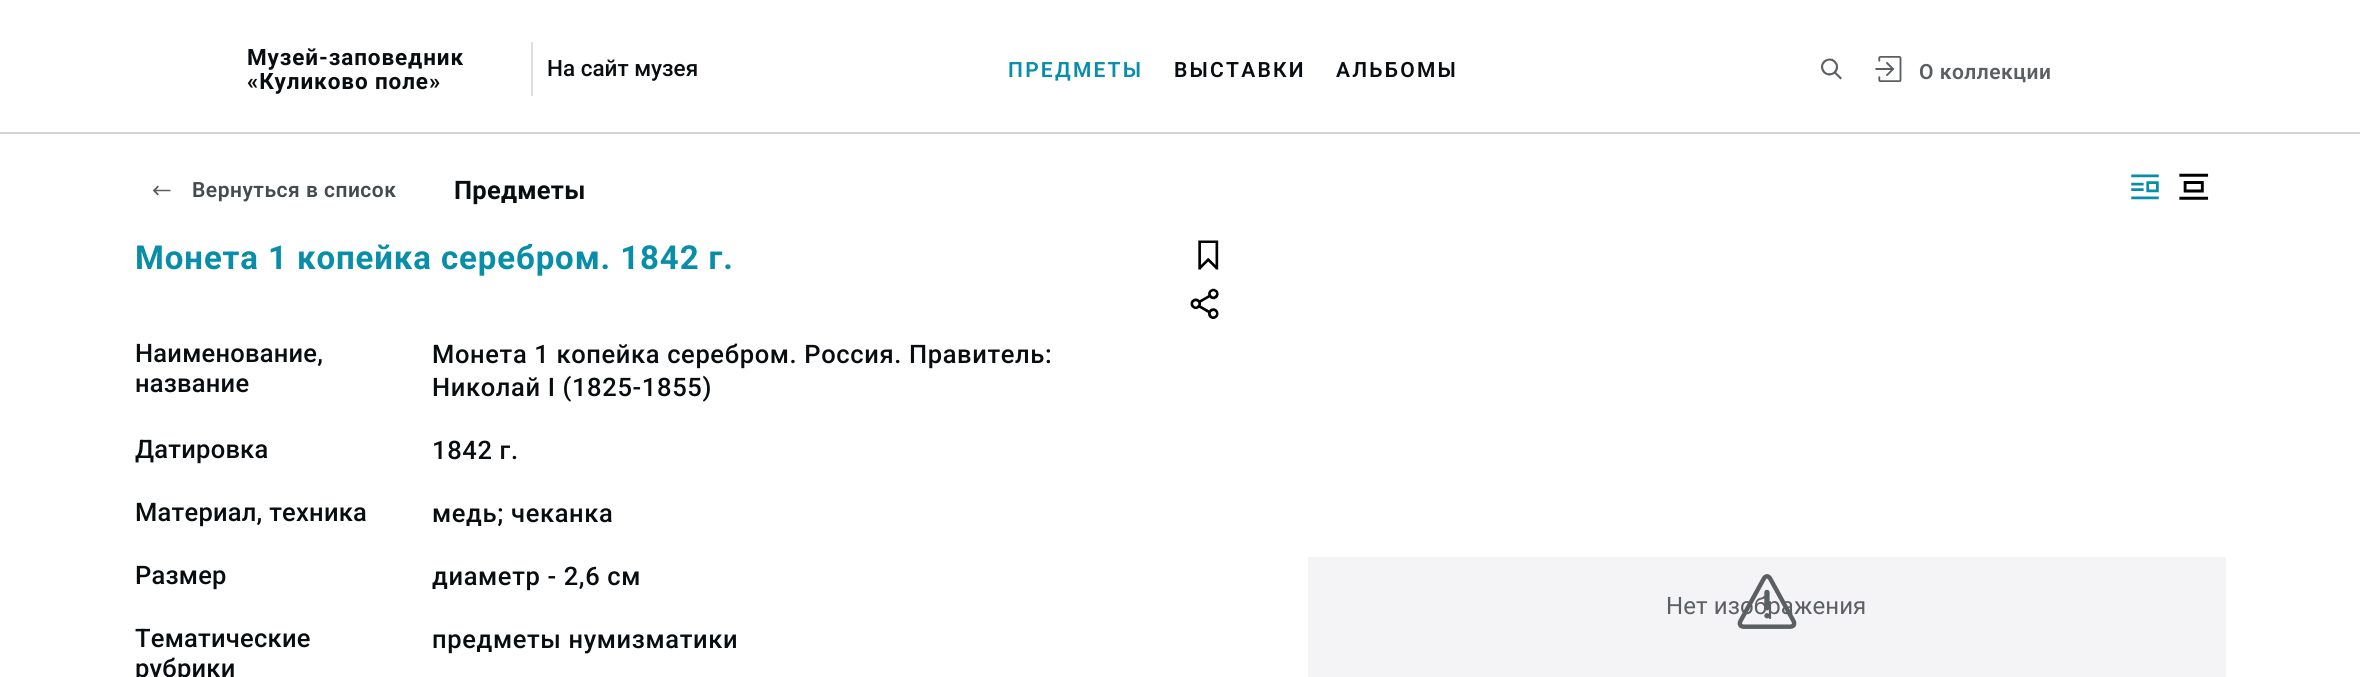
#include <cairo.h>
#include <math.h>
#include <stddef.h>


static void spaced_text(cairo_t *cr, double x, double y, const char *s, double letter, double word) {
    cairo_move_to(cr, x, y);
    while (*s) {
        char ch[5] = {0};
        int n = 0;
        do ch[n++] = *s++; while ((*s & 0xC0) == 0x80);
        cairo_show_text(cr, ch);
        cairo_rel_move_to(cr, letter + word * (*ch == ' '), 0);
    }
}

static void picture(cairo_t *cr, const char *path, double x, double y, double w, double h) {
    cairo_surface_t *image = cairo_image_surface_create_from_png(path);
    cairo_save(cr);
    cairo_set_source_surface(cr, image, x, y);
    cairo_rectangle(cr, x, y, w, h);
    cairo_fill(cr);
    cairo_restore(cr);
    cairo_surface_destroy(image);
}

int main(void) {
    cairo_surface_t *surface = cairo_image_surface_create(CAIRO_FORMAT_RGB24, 2360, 677);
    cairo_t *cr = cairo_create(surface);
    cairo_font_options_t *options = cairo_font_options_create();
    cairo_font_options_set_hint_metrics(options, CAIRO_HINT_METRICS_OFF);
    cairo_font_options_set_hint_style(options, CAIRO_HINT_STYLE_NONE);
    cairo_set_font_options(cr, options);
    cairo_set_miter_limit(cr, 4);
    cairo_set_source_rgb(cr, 1, 1, 1);
    cairo_paint(cr);
    cairo_set_source_rgb(cr, 0.827, 0.827, 0.827);
    cairo_rectangle(cr, 0, 132, 2360, 2);
    cairo_fill(cr);
    cairo_select_font_face(cr, "Roboto", CAIRO_FONT_SLANT_NORMAL, CAIRO_FONT_WEIGHT_BOLD);
    cairo_set_font_size(cr, 22.5);
    cairo_set_source_rgb(cr, 0.039, 0.051, 0.063);
    spaced_text(cr, 247, 65, "Музей-заповедник", 0.9, 0);
    spaced_text(cr, 247, 89, "«Куликово поле»", 0.9, 0);
    cairo_set_source_rgb(cr, 0.871, 0.871, 0.871);
    cairo_rectangle(cr, 531, 42, 2, 54);
    cairo_fill(cr);
    cairo_select_font_face(cr, "Roboto Medium", CAIRO_FONT_SLANT_NORMAL, CAIRO_FONT_WEIGHT_NORMAL);
    cairo_set_source_rgb(cr, 0.039, 0.051, 0.063);
    cairo_move_to(cr, 547, 76);
    cairo_show_text(cr, "На сайт музея");
    cairo_select_font_face(cr, "Roboto SemiBold", CAIRO_FONT_SLANT_NORMAL, CAIRO_FONT_WEIGHT_NORMAL);
    cairo_set_font_size(cr, 21);
    cairo_set_source_rgb(cr, 0.035, 0.557, 0.663);
    spaced_text(cr, 1008, 77, "ПРЕДМЕТЫ", 2.25, 0);
    cairo_set_source_rgb(cr, 0.039, 0.051, 0.063);
    spaced_text(cr, 1174, 77, "ВЫСТАВКИ", 2.25, 0);
    spaced_text(cr, 1336, 77, "АЛЬБОМЫ", 2.25, 0);
    picture(cr, "img1.png", 1821, 58, 21, 22);
    picture(cr, "img2.png", 1875, 56, 27, 26);
    cairo_set_source_rgb(cr, 0.361, 0.373, 0.384);
    spaced_text(cr, 1919, 79, "О коллекции", 0.5, 0);
    picture(cr, "img3.png", 152, 185, 19, 11);
    cairo_set_source_rgb(cr, 0.267, 0.29, 0.314);
    spaced_text(cr, 192, 197, "Вернуться в список", 0.5, 0);
    cairo_select_font_face(cr, "Roboto", CAIRO_FONT_SLANT_NORMAL, CAIRO_FONT_WEIGHT_BOLD);
    cairo_set_font_size(cr, 25.5);
    cairo_set_source_rgb(cr, 0.039, 0.051, 0.063);
    spaced_text(cr, 454, 199, "Предметы", 0.25, 0);
    picture(cr, "img4.png", 2131, 174, 28, 26);
    picture(cr, "img5.png", 2179, 173, 30, 27);
    cairo_set_font_size(cr, 33);
    cairo_set_source_rgb(cr, 0.035, 0.557, 0.663);
    spaced_text(cr, 135, 269, "Монета 1 копейка серебром. 1842 г.", 0.9, 0);
    picture(cr, "img6.png", 1198, 240, 21, 30);
    picture(cr, "img7.png", 1190, 288, 29, 31);
    cairo_select_font_face(cr, "Roboto Medium", CAIRO_FONT_SLANT_NORMAL, CAIRO_FONT_WEIGHT_NORMAL);
    cairo_set_font_size(cr, 25.5);
    cairo_set_source_rgb(cr, 0.039, 0.051, 0.063);
    spaced_text(cr, 135, 362, "Наименование,", 0.25, 0);
    spaced_text(cr, 135, 392, "название", 0.25, 0);
    spaced_text(cr, 432, 363, "Монета 1 копейка серебром. Россия. Правитель:", 0.65, 0);
    spaced_text(cr, 432, 396, "Николай I (1825-1855)", 0.65, 0);
    spaced_text(cr, 135, 458, "Датировка", 0.25, 0);
    spaced_text(cr, 432, 459, "1842 г.", 0.65, 0);
    spaced_text(cr, 135, 521, "Материал, техника", 0.25, 0);
    spaced_text(cr, 432, 522, "медь; чеканка", 0.65, 0);
    spaced_text(cr, 135, 584, "Размер", 0.25, 0);
    spaced_text(cr, 432, 585, "диаметр - 2,6 см", 0.65, 0);
    spaced_text(cr, 135, 647, "Тематические", 0.25, 0);
    spaced_text(cr, 135, 677, "рубрики", 0.25, 0);
    spaced_text(cr, 432, 648, "предметы нумизматики", 0.65, 0);
    cairo_set_source_rgb(cr, 0.957, 0.957, 0.961);
    cairo_rectangle(cr, 1308, 557, 918, 120);
    cairo_fill(cr);
    cairo_select_font_face(cr, "Roboto", CAIRO_FONT_SLANT_NORMAL, CAIRO_FONT_WEIGHT_NORMAL);
    cairo_set_font_size(cr, 24);
    cairo_set_source_rgb(cr, 0.361, 0.373, 0.384);
    spaced_text(cr, 1666, 614, "Нет изображения", 0.1, 0);
    picture(cr, "img8.png", 1737, 574, 60, 55);
    cairo_surface_write_to_png(surface, "page.png");
    cairo_font_options_destroy(options);
    cairo_destroy(cr);
    cairo_surface_destroy(surface);
    return 0;
}
